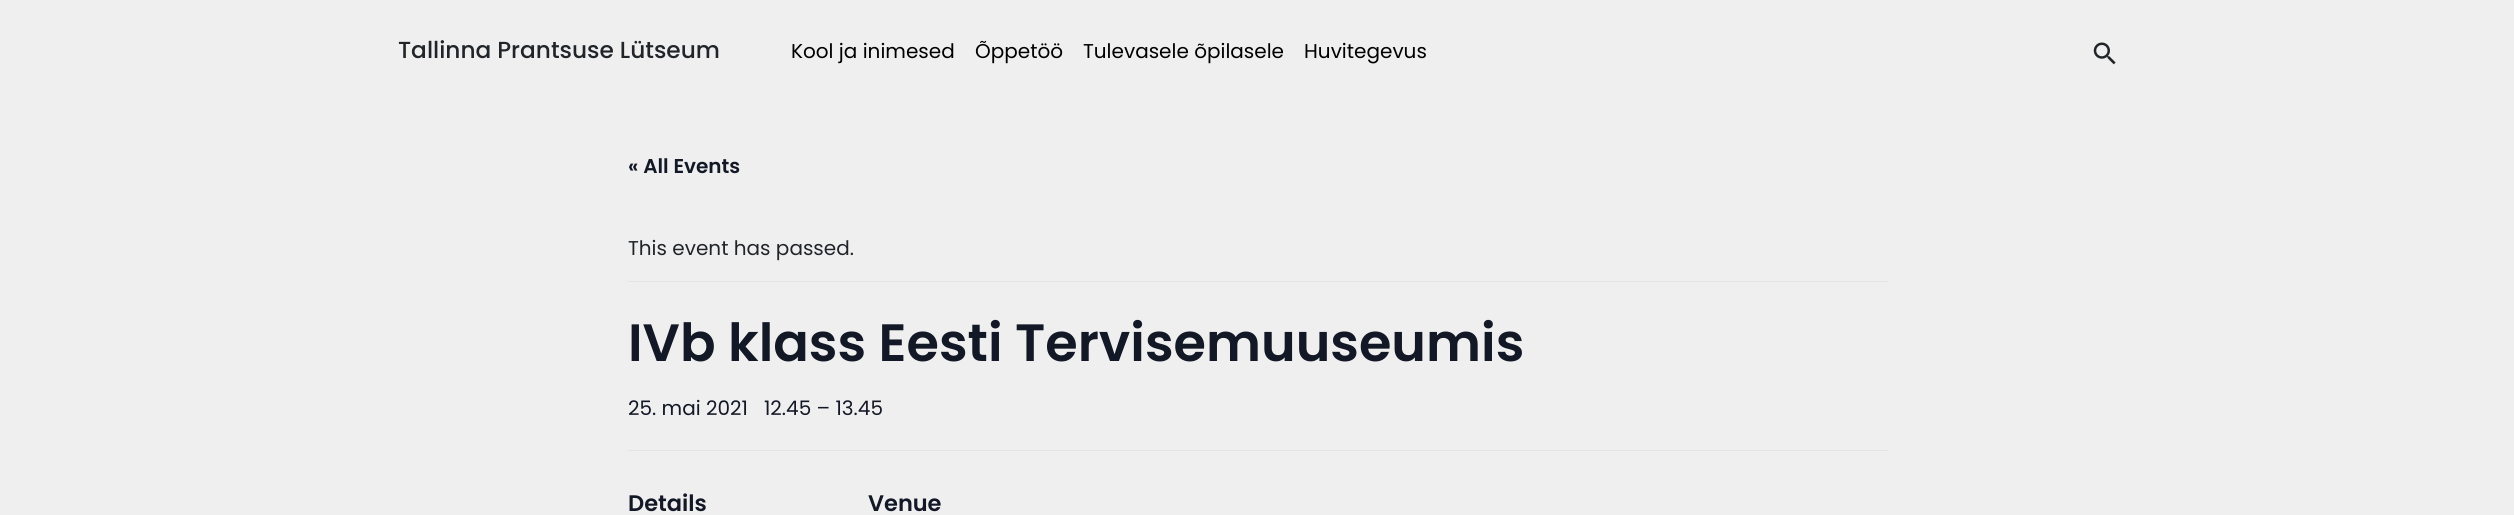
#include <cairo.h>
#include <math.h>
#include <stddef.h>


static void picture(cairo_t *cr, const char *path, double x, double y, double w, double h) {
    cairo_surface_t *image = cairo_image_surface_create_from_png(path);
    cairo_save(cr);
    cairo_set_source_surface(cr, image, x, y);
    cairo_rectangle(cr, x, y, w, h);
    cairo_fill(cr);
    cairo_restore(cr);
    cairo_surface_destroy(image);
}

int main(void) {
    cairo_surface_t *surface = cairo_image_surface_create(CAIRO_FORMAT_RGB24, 2514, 515);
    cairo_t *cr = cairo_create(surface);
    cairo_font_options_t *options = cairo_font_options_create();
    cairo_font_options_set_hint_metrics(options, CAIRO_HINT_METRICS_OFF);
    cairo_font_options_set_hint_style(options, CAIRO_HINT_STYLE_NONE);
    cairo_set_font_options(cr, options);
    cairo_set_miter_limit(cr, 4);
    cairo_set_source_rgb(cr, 1, 1, 1);
    cairo_paint(cr);
    cairo_set_source_rgb(cr, 0.937, 0.937, 0.937);
    cairo_new_path(cr);
    cairo_move_to(cr, 148, 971);
    cairo_curve_to(cr, -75, 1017, -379, 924, -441, 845);
    cairo_curve_to(cr, -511, 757, -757, 249, -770, 0);
    cairo_line_to(cr, 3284, 0);
    cairo_curve_to(cr, 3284, 210, 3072, 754, 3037, 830);
    cairo_curve_to(cr, 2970, 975, 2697, 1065, 2330, 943);
    cairo_curve_to(cr, 2174, 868, 1455, 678, 1304, 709);
    cairo_curve_to(cr, 1153, 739, 405, 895, 148, 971);
    cairo_close_path(cr);
    cairo_fill(cr);
    cairo_select_font_face(cr, "Poppins Medium", CAIRO_FONT_SLANT_NORMAL, CAIRO_FONT_WEIGHT_NORMAL);
    cairo_set_font_size(cr, 23.25);
    cairo_set_source_rgb(cr, 0.129, 0.145, 0.161);
    cairo_move_to(cr, 398, 58);
    cairo_show_text(cr, "Tallinna Prantsuse Lütseum");
    cairo_select_font_face(cr, "Poppins", CAIRO_FONT_SLANT_NORMAL, CAIRO_FONT_WEIGHT_NORMAL);
    cairo_set_font_size(cr, 20);
    cairo_set_source_rgb(cr, 0, 0, 0);
    cairo_move_to(cr, 791, 58);
    cairo_show_text(cr, "Kool ja inimesed");
    cairo_move_to(cr, 975, 58);
    cairo_show_text(cr, "Õppetöö");
    cairo_move_to(cr, 1083, 58);
    cairo_show_text(cr, "Tulevasele õpilasele");
    cairo_move_to(cr, 1304, 58);
    cairo_show_text(cr, "Huvitegevus");
    picture(cr, "img1.png", 2093, 42, 23, 23);
    cairo_select_font_face(cr, "Poppins SemiBold", CAIRO_FONT_SLANT_NORMAL, CAIRO_FONT_WEIGHT_NORMAL);
    cairo_set_source_rgb(cr, 0.078, 0.094, 0.153);
    cairo_move_to(cr, 628, 173);
    cairo_show_text(cr, "« All Events");
    cairo_set_source_rgb(cr, 0.894, 0.894, 0.894);
    cairo_rectangle(cr, 628, 281, 1260, 1);
    cairo_fill(cr);
    cairo_select_font_face(cr, "Poppins", CAIRO_FONT_SLANT_NORMAL, CAIRO_FONT_WEIGHT_NORMAL);
    cairo_set_source_rgb(cr, 0.129, 0.145, 0.161);
    cairo_move_to(cr, 628, 255);
    cairo_show_text(cr, "This event has passed.");
    cairo_select_font_face(cr, "Poppins SemiBold", CAIRO_FONT_SLANT_NORMAL, CAIRO_FONT_WEIGHT_NORMAL);
    cairo_set_font_size(cr, 52.5);
    cairo_set_source_rgb(cr, 0.078, 0.094, 0.153);
    cairo_move_to(cr, 628, 361);
    cairo_show_text(cr, "IVb klass Eesti Tervisemuuseumis");
    cairo_select_font_face(cr, "Poppins", CAIRO_FONT_SLANT_NORMAL, CAIRO_FONT_WEIGHT_NORMAL);
    cairo_set_font_size(cr, 20);
    cairo_move_to(cr, 628, 415);
    cairo_show_text(cr, "25. mai 2021   12.45 – 13.45");
    cairo_set_source_rgb(cr, 0.894, 0.894, 0.894);
    cairo_rectangle(cr, 628, 450, 1260, 1);
    cairo_fill(cr);
    cairo_select_font_face(cr, "Poppins SemiBold", CAIRO_FONT_SLANT_NORMAL, CAIRO_FONT_WEIGHT_NORMAL);
    cairo_set_font_size(cr, 22.5);
    cairo_set_source_rgb(cr, 0.078, 0.094, 0.153);
    cairo_move_to(cr, 628, 511);
    cairo_show_text(cr, "Details");
    cairo_move_to(cr, 868, 511);
    cairo_show_text(cr, "Venue");
    cairo_surface_write_to_png(surface, "page.png");
    cairo_font_options_destroy(options);
    cairo_destroy(cr);
    cairo_surface_destroy(surface);
    return 0;
}
